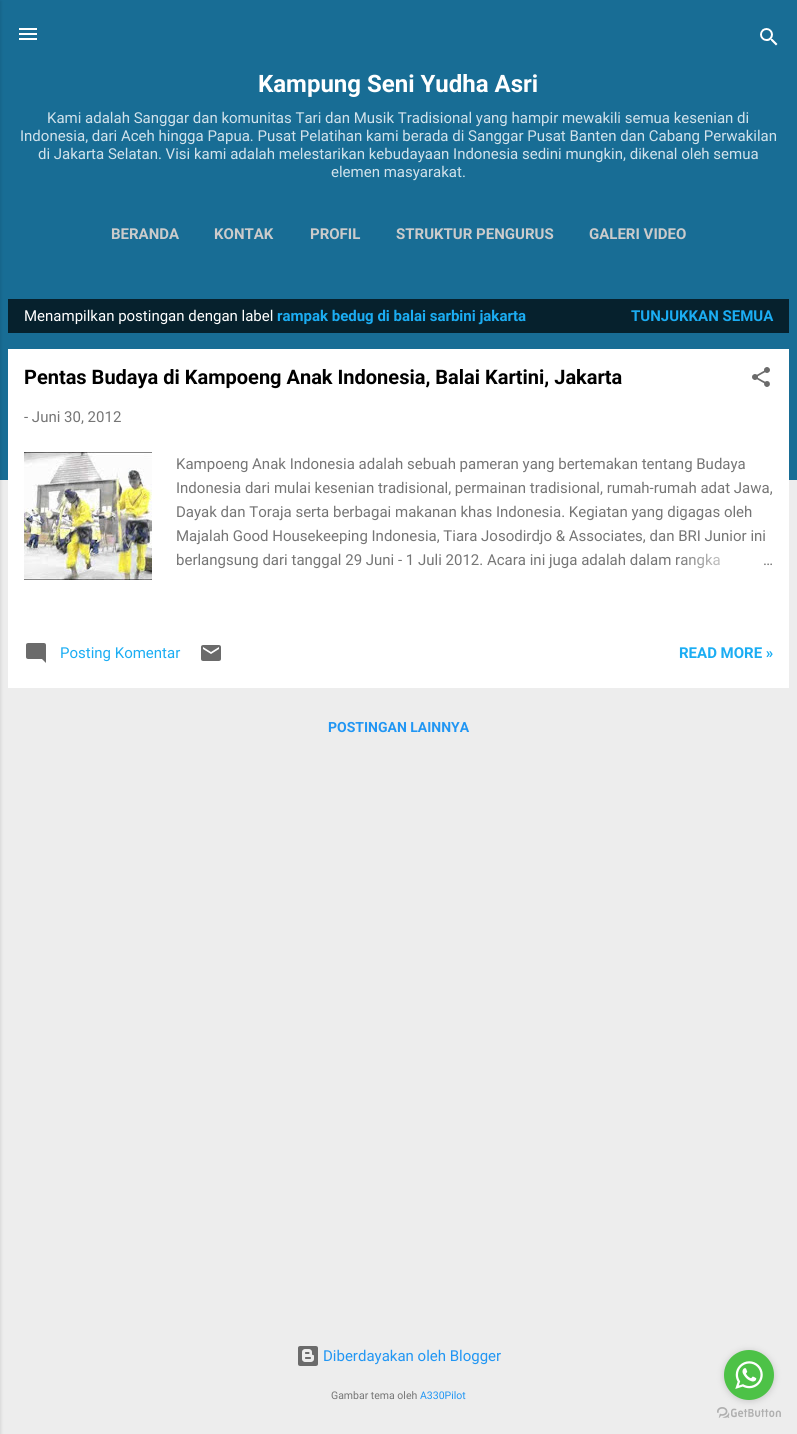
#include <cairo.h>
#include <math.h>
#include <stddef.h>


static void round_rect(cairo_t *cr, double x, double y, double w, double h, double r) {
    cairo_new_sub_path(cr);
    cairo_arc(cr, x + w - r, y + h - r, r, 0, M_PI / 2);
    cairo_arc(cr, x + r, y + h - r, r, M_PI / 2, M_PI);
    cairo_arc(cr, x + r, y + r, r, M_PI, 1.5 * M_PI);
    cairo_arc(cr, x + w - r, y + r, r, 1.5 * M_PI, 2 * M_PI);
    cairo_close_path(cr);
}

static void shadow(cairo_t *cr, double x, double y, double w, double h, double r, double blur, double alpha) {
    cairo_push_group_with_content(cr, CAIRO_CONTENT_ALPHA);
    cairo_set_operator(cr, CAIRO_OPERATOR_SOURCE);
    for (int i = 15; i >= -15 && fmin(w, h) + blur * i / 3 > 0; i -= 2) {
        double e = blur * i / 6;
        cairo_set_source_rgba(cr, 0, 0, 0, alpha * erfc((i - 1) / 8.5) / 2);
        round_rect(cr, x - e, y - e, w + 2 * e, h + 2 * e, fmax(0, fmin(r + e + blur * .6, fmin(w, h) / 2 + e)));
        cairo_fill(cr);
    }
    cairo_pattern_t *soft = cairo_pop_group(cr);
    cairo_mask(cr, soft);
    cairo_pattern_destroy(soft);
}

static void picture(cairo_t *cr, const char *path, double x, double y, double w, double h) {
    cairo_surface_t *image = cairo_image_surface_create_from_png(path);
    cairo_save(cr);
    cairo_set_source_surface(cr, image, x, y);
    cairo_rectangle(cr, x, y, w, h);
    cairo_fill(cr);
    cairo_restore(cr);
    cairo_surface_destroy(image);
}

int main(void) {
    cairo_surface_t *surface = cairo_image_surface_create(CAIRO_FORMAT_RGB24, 797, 1434);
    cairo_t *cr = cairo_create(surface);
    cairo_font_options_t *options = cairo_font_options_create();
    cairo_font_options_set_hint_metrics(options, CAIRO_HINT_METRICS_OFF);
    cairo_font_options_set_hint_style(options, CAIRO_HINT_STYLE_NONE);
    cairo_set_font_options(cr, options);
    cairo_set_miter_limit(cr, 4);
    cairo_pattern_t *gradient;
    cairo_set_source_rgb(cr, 0.929, 0.929, 0.929);
    cairo_paint(cr);
    cairo_set_source_rgb(cr, 0.094, 0.427, 0.584);
    cairo_rectangle(cr, 0, 0, 797, 480);
    cairo_fill(cr);
    cairo_set_source_rgb(cr, 0, 0, 0);
    shadow(cr, -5, 1, 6, 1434, 0, 1.5, 0.1);
    picture(cr, "img1.png", 19, 28, 18, 12);
    picture(cr, "img2.png", 760, 28, 18, 18);
    cairo_select_font_face(cr, "Roboto", CAIRO_FONT_SLANT_NORMAL, CAIRO_FONT_WEIGHT_BOLD);
    cairo_set_font_size(cr, 24);
    cairo_set_source_rgb(cr, 1, 1, 1);
    cairo_move_to(cr, 258, 92);
    cairo_show_text(cr, "Kampung Seni Yudha Asri");
    cairo_select_font_face(cr, "Roboto", CAIRO_FONT_SLANT_NORMAL, CAIRO_FONT_WEIGHT_NORMAL);
    cairo_set_font_size(cr, 15);
    cairo_set_source_rgb(cr, 0.82, 0.886, 0.918);
    cairo_move_to(cr, 47, 123);
    cairo_show_text(cr, "Kami adalah Sanggar dan komunitas Tari dan Musik Tradisional yang hampir mewakili semua kesenian di");
    cairo_move_to(cr, 20, 141);
    cairo_show_text(cr, "Indonesia, dari Aceh hingga Papua. Pusat Pelatihan kami berada di Sanggar Pusat Banten dan Cabang Perwakilan");
    cairo_move_to(cr, 38, 159);
    cairo_show_text(cr, "di Jakarta Selatan. Visi kami adalah melestarikan kebudayaan Indonesia sedini mungkin, dikenal oleh semua");
    cairo_move_to(cr, 331, 177);
    cairo_show_text(cr, "elemen masyarakat.");
    cairo_select_font_face(cr, "Roboto", CAIRO_FONT_SLANT_NORMAL, CAIRO_FONT_WEIGHT_BOLD);
    cairo_set_source_rgb(cr, 0.796, 0.796, 0.796);
    cairo_move_to(cr, 111, 239);
    cairo_show_text(cr, "BERANDA");
    cairo_move_to(cr, 214, 239);
    cairo_show_text(cr, "KONTAK");
    cairo_move_to(cr, 310, 239);
    cairo_show_text(cr, "PROFIL");
    cairo_move_to(cr, 396, 239);
    cairo_show_text(cr, "STRUKTUR PENGURUS");
    cairo_move_to(cr, 589, 239);
    cairo_show_text(cr, "GALERI VIDEO");
    cairo_set_source_rgb(cr, 0.027, 0.129, 0.176);
    cairo_rectangle(cr, 8, 299, 781, 34);
    cairo_fill(cr);
    cairo_select_font_face(cr, "Roboto", CAIRO_FONT_SLANT_NORMAL, CAIRO_FONT_WEIGHT_NORMAL);
    cairo_set_source_rgb(cr, 1, 1, 1);
    cairo_move_to(cr, 24, 321);
    cairo_show_text(cr, "Menampilkan postingan dengan label");
    cairo_select_font_face(cr, "Roboto", CAIRO_FONT_SLANT_NORMAL, CAIRO_FONT_WEIGHT_BOLD);
    cairo_set_source_rgb(cr, 0.106, 0.678, 0.953);
    cairo_move_to(cr, 277, 321);
    cairo_show_text(cr, "rampak bedug di balai sarbini jakarta");
    cairo_move_to(cr, 631, 321);
    cairo_show_text(cr, "TUNJUKKAN SEMUA");
    cairo_set_source_rgb(cr, 1, 1, 1);
    cairo_rectangle(cr, 8, 349, 781, 339);
    cairo_fill(cr);
    cairo_set_font_size(cr, 20);
    cairo_set_source_rgb(cr, 0, 0, 0);
    cairo_move_to(cr, 24, 384);
    cairo_show_text(cr, "Pentas Budaya di Kampoeng Anak Indonesia, Balai Kartini, Jakarta");
    picture(cr, "img3.png", 752, 367, 18, 20);
    cairo_select_font_face(cr, "Roboto", CAIRO_FONT_SLANT_NORMAL, CAIRO_FONT_WEIGHT_NORMAL);
    cairo_set_font_size(cr, 15);
    cairo_set_source_rgb(cr, 0.459, 0.459, 0.459);
    cairo_move_to(cr, 24, 422);
    cairo_show_text(cr, "- Juni 30, 2012");
    picture(cr, "img4.png", 24, 452, 128, 128);
    cairo_move_to(cr, 176, 469);
    cairo_show_text(cr, "Kampoeng Anak Indonesia adalah sebuah pameran yang bertemakan tentang Budaya");
    cairo_move_to(cr, 176, 493);
    cairo_show_text(cr, "Indonesia dari mulai kesenian tradisional, permainan tradisional, rumah-rumah adat Jawa,");
    cairo_move_to(cr, 176, 517);
    cairo_show_text(cr, "Dayak dan Toraja serta berbagai makanan khas Indonesia. Kegiatan yang digagas oleh");
    cairo_move_to(cr, 176, 541);
    cairo_show_text(cr, "Majalah Good Housekeeping Indonesia, Tiara Josodirdjo & Associates, dan BRI Junior ini");
    cairo_move_to(cr, 176, 565);
    cairo_show_text(cr, "berlangsung dari tanggal 29 Juni - 1 Juli 2012. Acara ini juga adalah dalam rangka");
    gradient = cairo_pattern_create_linear(773, 560, 677, 560);
    cairo_pattern_add_color_stop_rgba(gradient, 0, 1, 1, 1, 1);
    cairo_pattern_add_color_stop_rgba(gradient, 0.2, 1, 1, 1, 1);
    cairo_pattern_add_color_stop_rgba(gradient, 1, 1, 1, 1, 0);
    cairo_set_source(cr, gradient);
    cairo_pattern_destroy(gradient);
    cairo_rectangle(cr, 679, 553, 41, 16);
    cairo_fill(cr);
    cairo_set_source_rgb(cr, 0.459, 0.459, 0.459);
    cairo_move_to(cr, 763, 565);
    cairo_show_text(cr, "…");
    picture(cr, "img5.png", 26, 643, 20, 20);
    cairo_set_source_rgb(cr, 0.106, 0.678, 0.953);
    cairo_move_to(cr, 60, 658);
    cairo_show_text(cr, "Posting Komentar");
    picture(cr, "img6.png", 201, 645, 20, 16);
    cairo_select_font_face(cr, "Roboto", CAIRO_FONT_SLANT_NORMAL, CAIRO_FONT_WEIGHT_BOLD);
    cairo_move_to(cr, 679, 658);
    cairo_show_text(cr, "READ MORE »");
    cairo_set_font_size(cr, 14);
    cairo_set_source_rgb(cr, 0.129, 0.588, 0.953);
    cairo_move_to(cr, 328, 732);
    cairo_show_text(cr, "POSTINGAN LAINNYA");
    picture(cr, "img7.png", 298, 1346, 20, 20);
    cairo_select_font_face(cr, "Roboto", CAIRO_FONT_SLANT_NORMAL, CAIRO_FONT_WEIGHT_NORMAL);
    cairo_set_font_size(cr, 15);
    cairo_move_to(cr, 323, 1361);
    cairo_show_text(cr, "Diberdayakan oleh Blogger");
    cairo_set_font_size(cr, 10.5);
    cairo_set_source_rgb(cr, 0.459, 0.459, 0.459);
    cairo_move_to(cr, 331, 1399);
    cairo_show_text(cr, "Gambar tema oleh");
    cairo_set_source_rgb(cr, 0.129, 0.588, 0.953);
    cairo_move_to(cr, 420, 1399);
    cairo_show_text(cr, "A330Pilot");
    picture(cr, "img9.png", 717, 1407, 64, 11);
    cairo_set_source_rgb(cr, 0.533, 0.533, 0.533);
    shadow(cr, 724, 1351, 50, 50, 25, 3.5, 0.4);
    cairo_set_source_rgb(cr, 0.302, 0.761, 0.278);
    cairo_arc(cr, 749, 1375, 25, 0, 2 * M_PI);
    cairo_fill(cr);
    picture(cr, "img8.png", 735, 1361, 28, 28);
    cairo_surface_write_to_png(surface, "page.png");
    cairo_font_options_destroy(options);
    cairo_destroy(cr);
    cairo_surface_destroy(surface);
    return 0;
}
